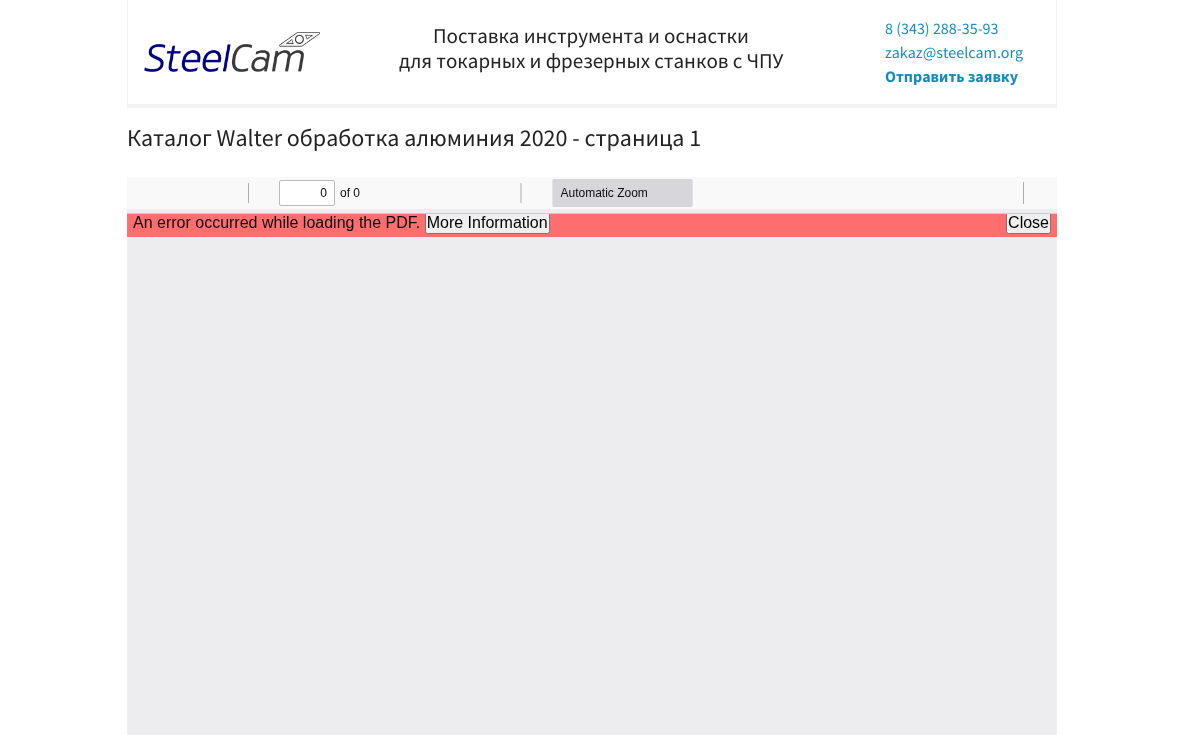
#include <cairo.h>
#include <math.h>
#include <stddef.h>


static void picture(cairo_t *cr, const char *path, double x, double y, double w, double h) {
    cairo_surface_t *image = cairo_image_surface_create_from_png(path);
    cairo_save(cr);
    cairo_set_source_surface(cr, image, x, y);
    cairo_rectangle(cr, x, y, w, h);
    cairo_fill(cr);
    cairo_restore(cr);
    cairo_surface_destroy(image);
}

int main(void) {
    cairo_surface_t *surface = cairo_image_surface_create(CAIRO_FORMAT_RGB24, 1183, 735);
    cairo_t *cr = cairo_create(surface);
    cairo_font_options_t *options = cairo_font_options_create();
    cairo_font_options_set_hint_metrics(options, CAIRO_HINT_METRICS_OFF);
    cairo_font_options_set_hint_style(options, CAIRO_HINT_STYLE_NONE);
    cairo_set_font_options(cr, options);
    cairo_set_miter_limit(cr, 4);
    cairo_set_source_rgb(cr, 1, 1, 1);
    cairo_paint(cr);
    cairo_set_source_rgb(cr, 0.949, 0.949, 0.949);
    cairo_rectangle(cr, 1056, 0, 1, 108);
    cairo_fill(cr);
    cairo_rectangle(cr, 127, 104, 930, 4);
    cairo_fill(cr);
    cairo_rectangle(cr, 127, 0, 1, 108);
    cairo_fill(cr);
    picture(cr, "img1.png", 144, 32, 176, 40);
    cairo_select_font_face(cr, "Source Sans Pro", CAIRO_FONT_SLANT_NORMAL, CAIRO_FONT_WEIGHT_NORMAL);
    cairo_set_font_size(cr, 21);
    cairo_set_source_rgb(cr, 0.133, 0.133, 0.133);
    cairo_move_to(cr, 433, 43);
    cairo_show_text(cr, "Поставка инструмента и оснастки");
    cairo_move_to(cr, 399, 68);
    cairo_show_text(cr, "для токарных и фрезерных станков с ЧПУ");
    cairo_set_font_size(cr, 16);
    cairo_set_source_rgb(cr, 0.082, 0.549, 0.729);
    cairo_move_to(cr, 885, 34);
    cairo_show_text(cr, "8 (343) 288-35-93");
    cairo_move_to(cr, 885, 58);
    cairo_show_text(cr, "zakaz@steelcam.org");
    cairo_select_font_face(cr, "Source Sans Pro", CAIRO_FONT_SLANT_NORMAL, CAIRO_FONT_WEIGHT_BOLD);
    cairo_move_to(cr, 885, 82);
    cairo_show_text(cr, "Отправить заявку");
    cairo_select_font_face(cr, "Source Sans Pro", CAIRO_FONT_SLANT_NORMAL, CAIRO_FONT_WEIGHT_NORMAL);
    cairo_set_font_size(cr, 24);
    cairo_set_source_rgb(cr, 0.133, 0.133, 0.133);
    cairo_move_to(cr, 127, 146);
    cairo_show_text(cr, "Каталог Walter обработка алюминия 2020 - страница 1");
    picture(cr, "img2.png", 127, 177, 930, 558);
    cairo_surface_write_to_png(surface, "page.png");
    cairo_font_options_destroy(options);
    cairo_destroy(cr);
    cairo_surface_destroy(surface);
    return 0;
}
